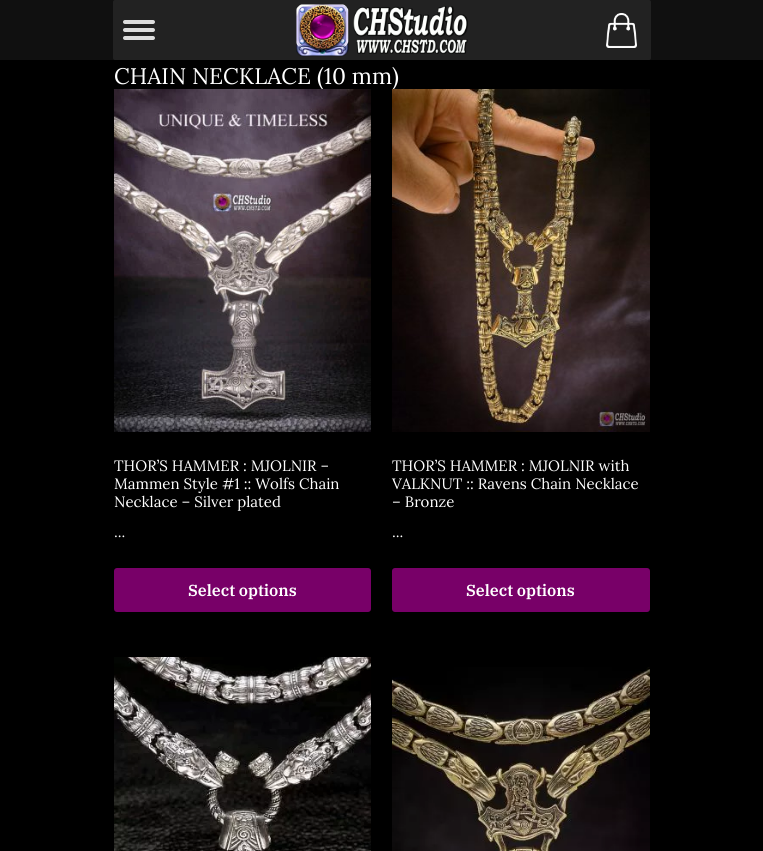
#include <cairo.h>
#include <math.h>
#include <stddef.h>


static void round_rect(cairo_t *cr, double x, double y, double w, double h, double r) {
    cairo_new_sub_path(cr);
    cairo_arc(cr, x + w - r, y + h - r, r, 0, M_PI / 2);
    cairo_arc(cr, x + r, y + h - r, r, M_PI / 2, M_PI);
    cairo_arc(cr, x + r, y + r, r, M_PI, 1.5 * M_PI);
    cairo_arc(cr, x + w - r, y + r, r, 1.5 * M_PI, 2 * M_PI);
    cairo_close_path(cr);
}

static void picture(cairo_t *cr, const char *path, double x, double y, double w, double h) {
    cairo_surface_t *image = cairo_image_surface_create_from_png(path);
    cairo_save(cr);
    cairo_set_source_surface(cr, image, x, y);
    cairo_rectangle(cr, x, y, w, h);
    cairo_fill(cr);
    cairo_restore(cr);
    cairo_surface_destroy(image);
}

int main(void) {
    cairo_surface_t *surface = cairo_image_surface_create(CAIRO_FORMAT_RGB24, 763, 851);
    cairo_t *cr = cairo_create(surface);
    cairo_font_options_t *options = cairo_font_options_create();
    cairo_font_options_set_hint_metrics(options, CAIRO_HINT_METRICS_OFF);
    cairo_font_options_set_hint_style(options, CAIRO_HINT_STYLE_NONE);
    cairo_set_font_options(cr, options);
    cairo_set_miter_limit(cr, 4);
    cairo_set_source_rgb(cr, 0, 0, 0);
    cairo_paint(cr);
    cairo_set_source_rgb(cr, 0.063, 0.063, 0.063);
    cairo_rectangle(cr, 0, 0, 763, 60);
    cairo_fill(cr);
    cairo_set_source_rgb(cr, 0.133, 0.133, 0.133);
    round_rect(cr, 113, 0, 538, 60, 2);
    cairo_fill(cr);
    cairo_set_source_rgb(cr, 0.867, 0.867, 0.867);
    round_rect(cr, 123, 20, 32, 4, 2);
    cairo_fill(cr);
    round_rect(cr, 123, 28, 32, 4, 2);
    cairo_fill(cr);
    round_rect(cr, 123, 36, 32, 4, 2);
    cairo_fill(cr);
    picture(cr, "img1.png", 296, 4, 172, 53);
    picture(cr, "img2.png", 606, 13, 31, 35);
    cairo_select_font_face(cr, "Lora", CAIRO_FONT_SLANT_NORMAL, CAIRO_FONT_WEIGHT_NORMAL);
    cairo_set_font_size(cr, 22.5);
    cairo_set_source_rgb(cr, 1, 1, 1);
    cairo_move_to(cr, 114, 84);
    cairo_show_text(cr, "CHAIN NECKLACE (10 mm)");
    picture(cr, "img3.png", 114, 89, 257, 343);
    cairo_set_font_size(cr, 15);
    cairo_move_to(cr, 114, 471);
    cairo_show_text(cr, "THOR’S HAMMER : MJOLNIR –");
    cairo_move_to(cr, 114, 489);
    cairo_show_text(cr, "Mammen Style #1 :: Wolfs Chain");
    cairo_move_to(cr, 114, 507);
    cairo_show_text(cr, "Necklace – Silver plated");
    cairo_select_font_face(cr, "Liberation Serif", CAIRO_FONT_SLANT_NORMAL, CAIRO_FONT_WEIGHT_NORMAL);
    cairo_move_to(cr, 114, 537);
    cairo_show_text(cr, "...");
    cairo_set_source_rgb(cr, 0.471, 0, 0.408);
    round_rect(cr, 114, 568, 257, 44, 3);
    cairo_fill(cr);
    cairo_select_font_face(cr, "IBM Plex Serif SemiBold", CAIRO_FONT_SLANT_NORMAL, CAIRO_FONT_WEIGHT_NORMAL);
    cairo_set_font_size(cr, 16);
    cairo_set_source_rgb(cr, 1, 1, 1);
    cairo_move_to(cr, 188, 596);
    cairo_show_text(cr, "Select options");
    picture(cr, "img4.png", 392, 89, 258, 343);
    cairo_select_font_face(cr, "Lora", CAIRO_FONT_SLANT_NORMAL, CAIRO_FONT_WEIGHT_NORMAL);
    cairo_set_font_size(cr, 15);
    cairo_move_to(cr, 392, 471);
    cairo_show_text(cr, "THOR’S HAMMER : MJOLNIR with");
    cairo_move_to(cr, 392, 489);
    cairo_show_text(cr, "VALKNUT :: Ravens Chain Necklace");
    cairo_move_to(cr, 392, 507);
    cairo_show_text(cr, "– Bronze");
    cairo_select_font_face(cr, "Liberation Serif", CAIRO_FONT_SLANT_NORMAL, CAIRO_FONT_WEIGHT_NORMAL);
    cairo_move_to(cr, 392, 537);
    cairo_show_text(cr, "...");
    cairo_set_source_rgb(cr, 0.471, 0, 0.408);
    round_rect(cr, 392, 568, 258, 44, 3);
    cairo_fill(cr);
    cairo_select_font_face(cr, "IBM Plex Serif SemiBold", CAIRO_FONT_SLANT_NORMAL, CAIRO_FONT_WEIGHT_NORMAL);
    cairo_set_font_size(cr, 16);
    cairo_set_source_rgb(cr, 1, 1, 1);
    cairo_move_to(cr, 466, 596);
    cairo_show_text(cr, "Select options");
    picture(cr, "img5.png", 114, 657, 257, 194);
    picture(cr, "img6.png", 392, 667, 258, 184);
    cairo_surface_write_to_png(surface, "page.png");
    cairo_font_options_destroy(options);
    cairo_destroy(cr);
    cairo_surface_destroy(surface);
    return 0;
}
